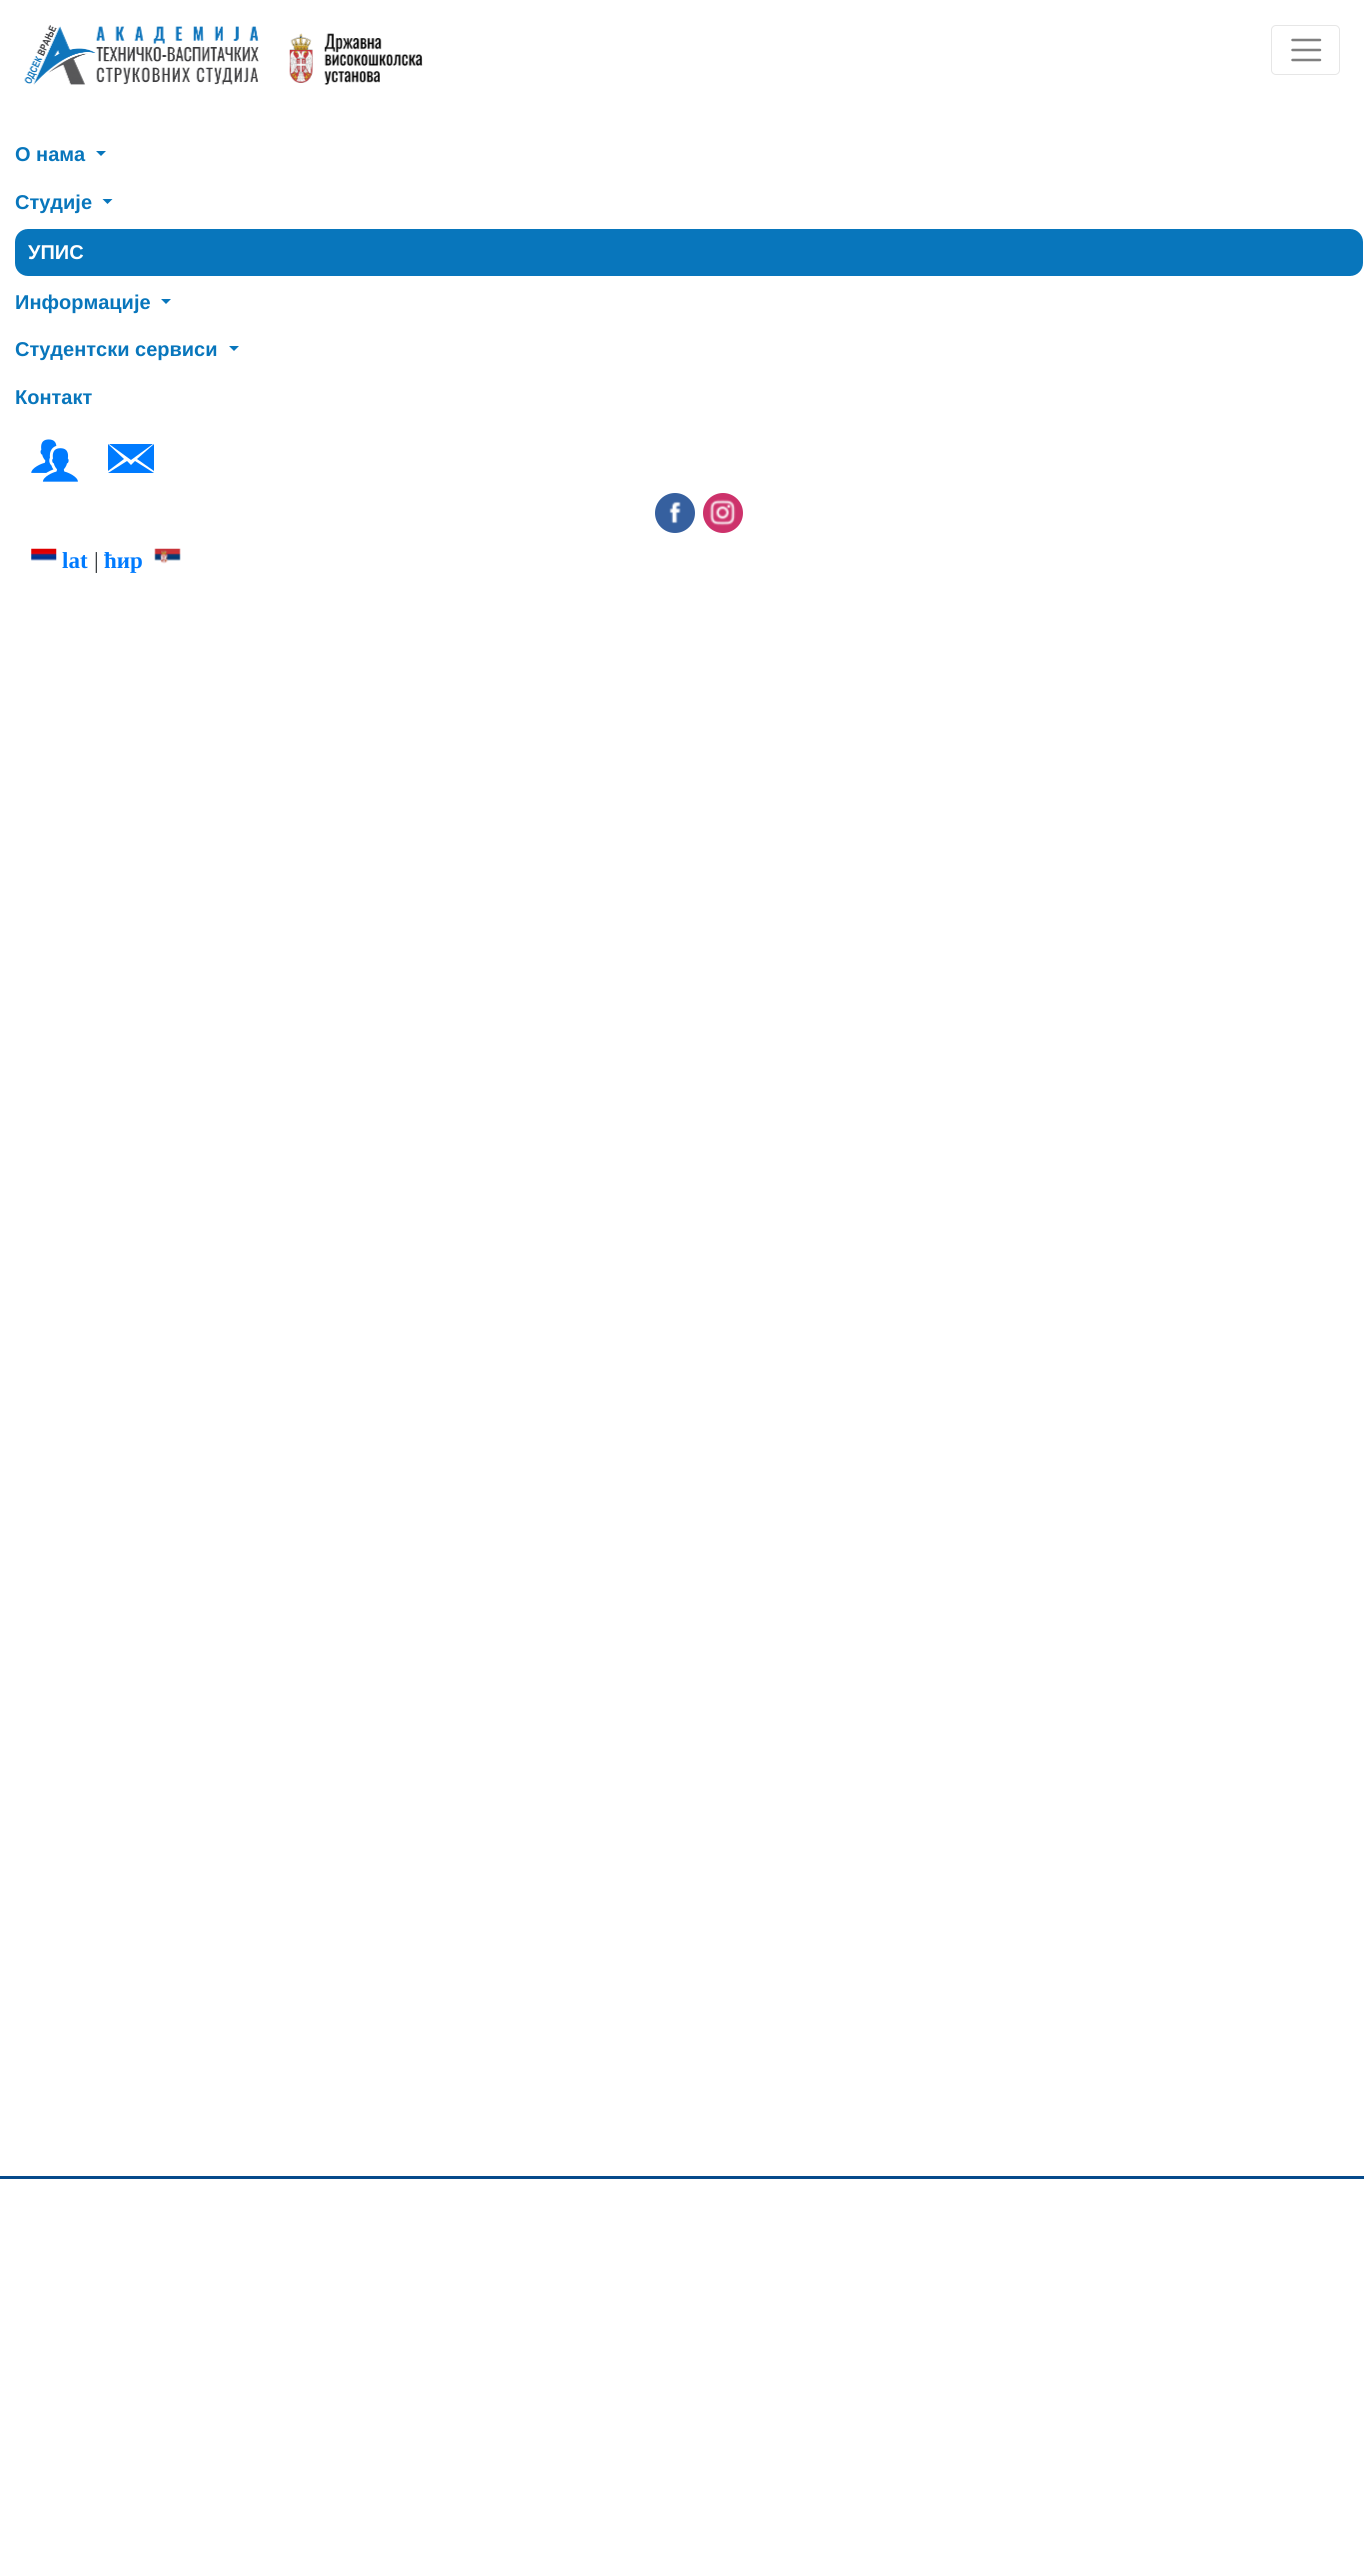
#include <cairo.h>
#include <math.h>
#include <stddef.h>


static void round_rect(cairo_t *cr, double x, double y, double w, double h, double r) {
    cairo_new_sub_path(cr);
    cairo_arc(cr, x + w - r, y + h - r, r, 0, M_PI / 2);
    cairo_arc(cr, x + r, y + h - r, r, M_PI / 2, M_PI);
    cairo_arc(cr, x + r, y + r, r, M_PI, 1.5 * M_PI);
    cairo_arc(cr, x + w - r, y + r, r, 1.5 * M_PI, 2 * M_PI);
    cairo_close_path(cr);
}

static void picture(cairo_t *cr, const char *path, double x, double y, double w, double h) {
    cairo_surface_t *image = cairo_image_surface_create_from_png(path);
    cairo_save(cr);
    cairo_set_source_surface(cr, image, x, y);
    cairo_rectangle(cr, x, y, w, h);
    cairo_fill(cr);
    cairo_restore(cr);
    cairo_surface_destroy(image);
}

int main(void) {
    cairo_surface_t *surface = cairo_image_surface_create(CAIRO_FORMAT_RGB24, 1364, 2556);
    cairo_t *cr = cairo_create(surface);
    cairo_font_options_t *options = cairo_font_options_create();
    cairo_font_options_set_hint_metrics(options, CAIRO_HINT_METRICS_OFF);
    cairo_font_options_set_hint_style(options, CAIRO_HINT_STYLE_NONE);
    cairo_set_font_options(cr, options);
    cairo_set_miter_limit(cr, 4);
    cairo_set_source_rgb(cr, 1, 1, 1);
    cairo_paint(cr);
    cairo_set_source_rgb(cr, 0.027, 0.29, 0.545);
    cairo_rectangle(cr, 0, 2176, 1364, 3);
    cairo_fill(cr);
    picture(cr, "img1.png", 24, 25, 235, 60);
    picture(cr, "img2.png", 289, 33, 134, 52);
    round_rect(cr, 1271.5, 25.5, 68, 49, 4.5);
    cairo_set_source_rgb(cr, 0.902, 0.902, 0.902);
    cairo_set_line_width(cr, 1);
    cairo_stroke(cr);
    cairo_new_path(cr);
    cairo_move_to(cr, 1292.5, 40);
    cairo_line_to(cr, 1320, 40);
    cairo_move_to(cr, 1292.5, 50);
    cairo_line_to(cr, 1320, 50);
    cairo_move_to(cr, 1292.5, 60);
    cairo_line_to(cr, 1320, 60);
    cairo_set_source_rgb(cr, 0.502, 0.502, 0.502);
    cairo_set_line_width(cr, 2.5);
    cairo_set_line_cap(cr, CAIRO_LINE_CAP_ROUND);
    cairo_stroke(cr);
    cairo_select_font_face(cr, "Liberation Sans", CAIRO_FONT_SLANT_NORMAL, CAIRO_FONT_WEIGHT_BOLD);
    cairo_set_font_size(cr, 20);
    cairo_set_source_rgb(cr, 0.035, 0.463, 0.737);
    cairo_move_to(cr, 15, 161);
    cairo_show_text(cr, "О нама");
    cairo_new_path(cr);
    cairo_move_to(cr, 96, 151);
    cairo_line_to(cr, 106, 151);
    cairo_line_to(cr, 101, 156);
    cairo_close_path(cr);
    cairo_fill(cr);
    cairo_move_to(cr, 15, 209);
    cairo_show_text(cr, "Студије");
    cairo_new_path(cr);
    cairo_move_to(cr, 102.5, 199);
    cairo_line_to(cr, 112.5, 199);
    cairo_line_to(cr, 107.5, 204);
    cairo_close_path(cr);
    cairo_fill(cr);
    round_rect(cr, 15, 229, 1348, 47, 13);
    cairo_fill(cr);
    cairo_set_source_rgb(cr, 1, 1, 1);
    cairo_move_to(cr, 28, 259);
    cairo_show_text(cr, "УПИС");
    cairo_set_source_rgb(cr, 0.035, 0.463, 0.737);
    cairo_move_to(cr, 15, 309);
    cairo_show_text(cr, "Информације");
    cairo_new_path(cr);
    cairo_move_to(cr, 161, 299);
    cairo_line_to(cr, 171, 299);
    cairo_line_to(cr, 166, 304);
    cairo_close_path(cr);
    cairo_fill(cr);
    cairo_move_to(cr, 15, 356);
    cairo_show_text(cr, "Студентски сервиси");
    cairo_new_path(cr);
    cairo_move_to(cr, 229, 346);
    cairo_line_to(cr, 239, 346);
    cairo_line_to(cr, 234, 351);
    cairo_close_path(cr);
    cairo_fill(cr);
    cairo_move_to(cr, 15, 404);
    cairo_show_text(cr, "Контакт");
    picture(cr, "img3.png", 31, 439, 47, 43);
    cairo_set_source_rgb(cr, 0, 0.482, 1);
    cairo_new_path(cr);
    cairo_move_to(cr, 137, 459);
    cairo_line_to(cr, 154, 444);
    cairo_line_to(cr, 154, 471);
    cairo_close_path(cr);
    cairo_move_to(cr, 108, 444);
    cairo_line_to(cr, 124, 459);
    cairo_line_to(cr, 108, 471);
    cairo_close_path(cr);
    cairo_move_to(cr, 131, 465);
    cairo_line_to(cr, 135, 461);
    cairo_line_to(cr, 154, 473);
    cairo_line_to(cr, 108, 473);
    cairo_line_to(cr, 127, 461);
    cairo_close_path(cr);
    cairo_move_to(cr, 153, 444);
    cairo_line_to(cr, 131, 460);
    cairo_line_to(cr, 109, 444);
    cairo_close_path(cr);
    cairo_fill(cr);
    cairo_set_source_rgb(cr, 0.212, 0.376, 0.624);
    cairo_arc(cr, 675, 513, 20, 0, 2 * M_PI);
    cairo_fill(cr);
    picture(cr, "img4.png", 669, 501, 12, 23);
    cairo_set_source_rgb(cr, 0.804, 0.196, 0.42);
    cairo_arc(cr, 723, 513, 20, 0, 2 * M_PI);
    cairo_fill(cr);
    picture(cr, "img5.png", 709, 499, 27, 27);
    picture(cr, "img6.png", 31, 548, 26, 13);
    cairo_select_font_face(cr, "Liberation Serif", CAIRO_FONT_SLANT_NORMAL, CAIRO_FONT_WEIGHT_BOLD);
    cairo_set_font_size(cr, 23);
    cairo_set_source_rgb(cr, 0, 0.482, 1);
    cairo_move_to(cr, 62, 568);
    cairo_show_text(cr, "lat");
    cairo_select_font_face(cr, "Liberation Serif", CAIRO_FONT_SLANT_NORMAL, CAIRO_FONT_WEIGHT_NORMAL);
    cairo_set_source_rgb(cr, 0.129, 0.145, 0.161);
    cairo_move_to(cr, 94, 568);
    cairo_show_text(cr, "|");
    cairo_select_font_face(cr, "Liberation Serif", CAIRO_FONT_SLANT_NORMAL, CAIRO_FONT_WEIGHT_BOLD);
    cairo_set_source_rgb(cr, 0, 0.482, 1);
    cairo_move_to(cr, 104, 568);
    cairo_show_text(cr, "ћир");
    picture(cr, "img7.png", 154, 548, 27, 16);
    cairo_surface_write_to_png(surface, "page.png");
    cairo_font_options_destroy(options);
    cairo_destroy(cr);
    cairo_surface_destroy(surface);
    return 0;
}
